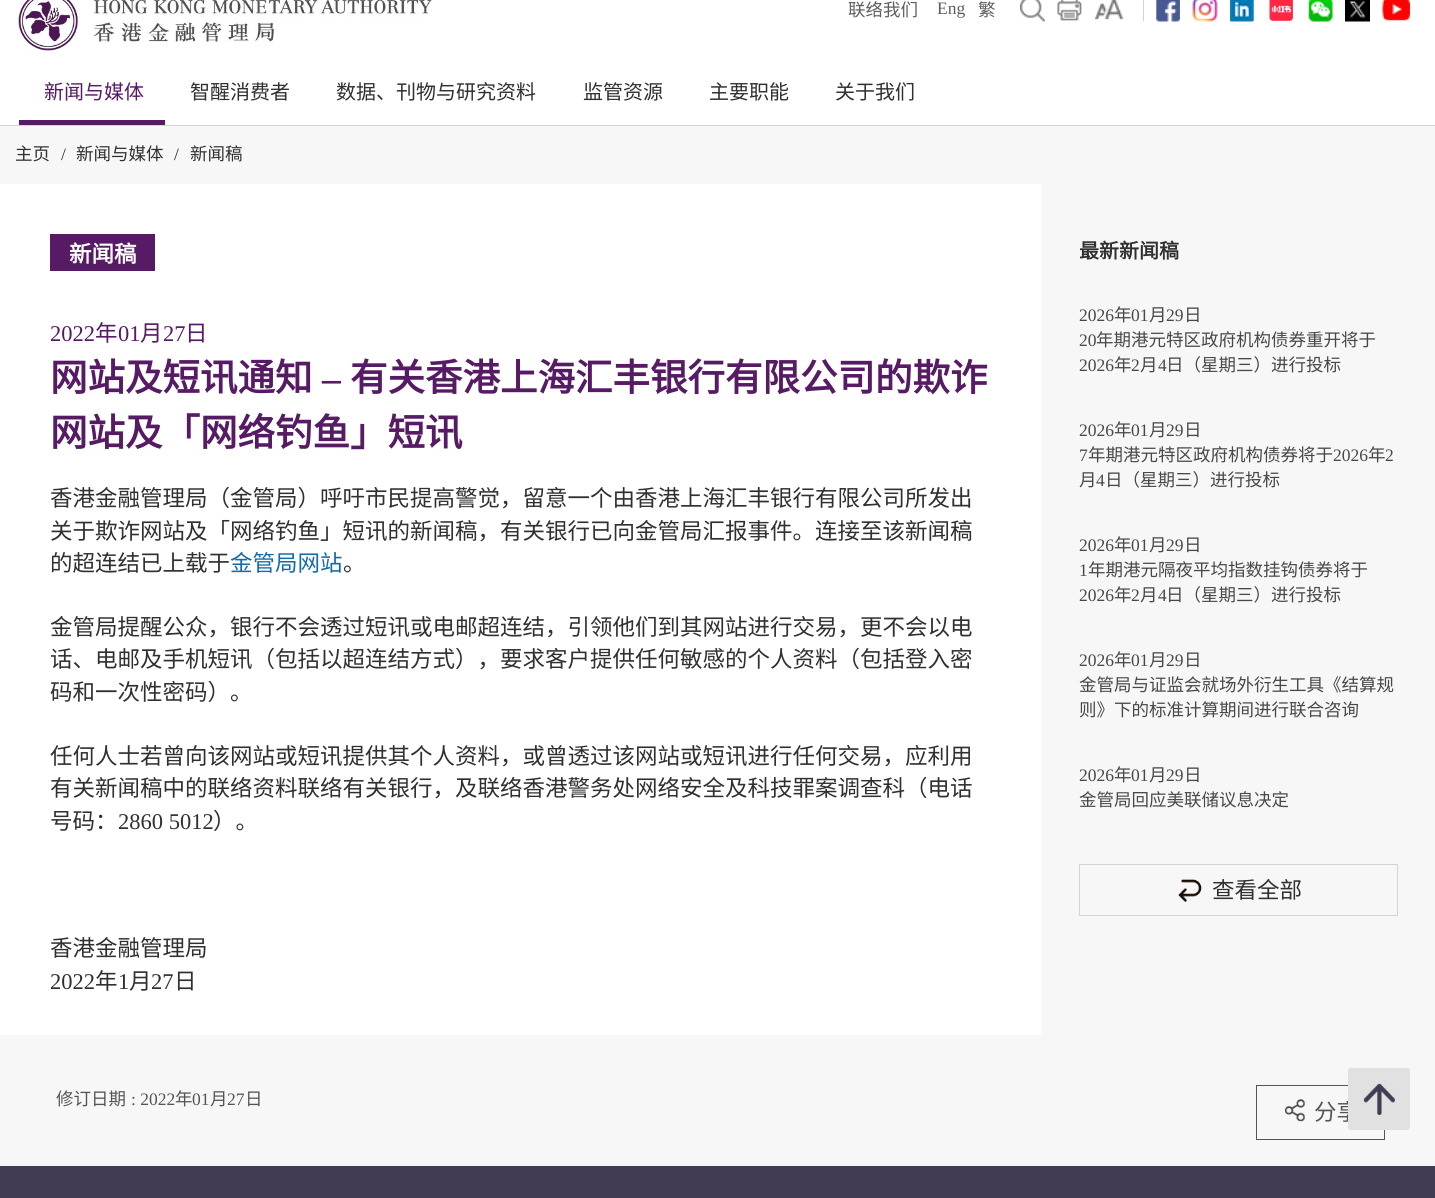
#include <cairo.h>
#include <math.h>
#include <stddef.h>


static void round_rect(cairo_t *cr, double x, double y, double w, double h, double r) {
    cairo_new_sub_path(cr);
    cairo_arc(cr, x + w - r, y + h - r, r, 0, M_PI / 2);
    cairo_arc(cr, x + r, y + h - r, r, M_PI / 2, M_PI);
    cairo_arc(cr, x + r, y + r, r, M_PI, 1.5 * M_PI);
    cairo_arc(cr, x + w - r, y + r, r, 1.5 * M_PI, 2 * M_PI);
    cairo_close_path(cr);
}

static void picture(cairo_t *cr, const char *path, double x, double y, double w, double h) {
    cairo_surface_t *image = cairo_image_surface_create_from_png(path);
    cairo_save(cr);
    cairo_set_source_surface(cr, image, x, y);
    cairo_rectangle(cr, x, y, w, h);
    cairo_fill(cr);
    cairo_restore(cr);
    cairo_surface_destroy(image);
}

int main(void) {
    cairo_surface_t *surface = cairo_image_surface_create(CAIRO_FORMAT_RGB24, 1435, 1198);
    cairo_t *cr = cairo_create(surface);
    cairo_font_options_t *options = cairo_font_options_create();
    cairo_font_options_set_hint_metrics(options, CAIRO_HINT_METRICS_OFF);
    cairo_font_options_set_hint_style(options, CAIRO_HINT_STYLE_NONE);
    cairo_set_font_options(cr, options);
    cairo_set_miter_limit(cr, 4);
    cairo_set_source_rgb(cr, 0.965, 0.965, 0.965);
    cairo_paint(cr);
    cairo_set_source_rgb(cr, 1, 1, 1);
    cairo_rectangle(cr, 0, 0, 1435, 125);
    cairo_fill(cr);
    cairo_set_source_rgb(cr, 0.831, 0.831, 0.831);
    cairo_rectangle(cr, 0, 125, 1435, 1);
    cairo_fill(cr);
    picture(cr, "img1.png", 18, 0, 414, 51);
    cairo_select_font_face(cr, "Noto Sans CJK SC", CAIRO_FONT_SLANT_NORMAL, CAIRO_FONT_WEIGHT_NORMAL);
    cairo_set_font_size(cr, 17.5);
    cairo_set_source_rgb(cr, 0.369, 0.369, 0.369);
    cairo_move_to(cr, 848, 16);
    cairo_show_text(cr, "联络我们");
    cairo_select_font_face(cr, "Liberation Serif", CAIRO_FONT_SLANT_NORMAL, CAIRO_FONT_WEIGHT_NORMAL);
    cairo_move_to(cr, 937, 14);
    cairo_show_text(cr, "Eng");
    cairo_select_font_face(cr, "Noto Sans CJK SC", CAIRO_FONT_SLANT_NORMAL, CAIRO_FONT_WEIGHT_NORMAL);
    cairo_move_to(cr, 978, 16);
    cairo_show_text(cr, "繁");
    picture(cr, "img2.png", 1020, 0, 25, 22);
    picture(cr, "img3.png", 1057, 0, 25, 21);
    picture(cr, "img4.png", 1095, 0, 29, 20);
    cairo_set_source_rgb(cr, 0.831, 0.831, 0.831);
    cairo_rectangle(cr, 1143, 0, 1, 21);
    cairo_fill(cr);
    picture(cr, "img5.png", 1156, 0, 24, 22);
    picture(cr, "img6.png", 1192, 0, 26, 22);
    picture(cr, "img7.png", 1230, 0, 24, 22);
    picture(cr, "img8.png", 1269, 0, 24, 21);
    picture(cr, "img9.png", 1308, 0, 25, 22);
    picture(cr, "img10.png", 1345, 0, 25, 22);
    picture(cr, "img11.png", 1382, 0, 28, 21);
    cairo_set_source_rgb(cr, 0.341, 0.102, 0.392);
    cairo_rectangle(cr, 19, 120, 146, 5);
    cairo_fill(cr);
    cairo_set_font_size(cr, 20);
    cairo_move_to(cr, 44, 99);
    cairo_show_text(cr, "新闻与媒体");
    cairo_set_source_rgb(cr, 0.188, 0.188, 0.188);
    cairo_move_to(cr, 190, 99);
    cairo_show_text(cr, "智醒消费者");
    cairo_move_to(cr, 336, 99);
    cairo_show_text(cr, "数据、刊物与研究资料");
    cairo_move_to(cr, 583, 99);
    cairo_show_text(cr, "监管资源");
    cairo_move_to(cr, 709, 99);
    cairo_show_text(cr, "主要职能");
    cairo_move_to(cr, 835, 99);
    cairo_show_text(cr, "关于我们");
    cairo_set_font_size(cr, 17.5);
    cairo_move_to(cr, 15, 160);
    cairo_show_text(cr, "主页");
    cairo_select_font_face(cr, "Liberation Serif", CAIRO_FONT_SLANT_NORMAL, CAIRO_FONT_WEIGHT_NORMAL);
    cairo_move_to(cr, 61, 160);
    cairo_show_text(cr, "/");
    cairo_select_font_face(cr, "Noto Sans CJK SC", CAIRO_FONT_SLANT_NORMAL, CAIRO_FONT_WEIGHT_NORMAL);
    cairo_move_to(cr, 76, 160);
    cairo_show_text(cr, "新闻与媒体");
    cairo_select_font_face(cr, "Liberation Serif", CAIRO_FONT_SLANT_NORMAL, CAIRO_FONT_WEIGHT_NORMAL);
    cairo_move_to(cr, 174, 160);
    cairo_show_text(cr, "/");
    cairo_select_font_face(cr, "Noto Sans CJK SC", CAIRO_FONT_SLANT_NORMAL, CAIRO_FONT_WEIGHT_NORMAL);
    cairo_move_to(cr, 190, 160);
    cairo_show_text(cr, "新闻稿");
    cairo_set_source_rgb(cr, 1, 1, 1);
    cairo_rectangle(cr, 0, 184, 1041, 851);
    cairo_fill(cr);
    cairo_set_source_rgb(cr, 0.341, 0.102, 0.392);
    cairo_rectangle(cr, 50, 234, 105, 37);
    cairo_fill(cr);
    cairo_select_font_face(cr, "Noto Sans CJK SC", CAIRO_FONT_SLANT_NORMAL, CAIRO_FONT_WEIGHT_BOLD);
    cairo_set_font_size(cr, 22.5);
    cairo_set_source_rgb(cr, 1, 1, 1);
    cairo_move_to(cr, 69, 262);
    cairo_show_text(cr, "新闻稿");
    cairo_select_font_face(cr, "Liberation Serif", CAIRO_FONT_SLANT_NORMAL, CAIRO_FONT_WEIGHT_NORMAL);
    cairo_set_source_rgb(cr, 0.341, 0.102, 0.392);
    cairo_move_to(cr, 50, 341);
    cairo_show_text(cr, "2022");
    cairo_select_font_face(cr, "Noto Sans CJK SC", CAIRO_FONT_SLANT_NORMAL, CAIRO_FONT_WEIGHT_NORMAL);
    cairo_move_to(cr, 95, 341);
    cairo_show_text(cr, "年");
    cairo_select_font_face(cr, "Liberation Serif", CAIRO_FONT_SLANT_NORMAL, CAIRO_FONT_WEIGHT_NORMAL);
    cairo_move_to(cr, 118, 341);
    cairo_show_text(cr, "01");
    cairo_select_font_face(cr, "Noto Sans CJK SC", CAIRO_FONT_SLANT_NORMAL, CAIRO_FONT_WEIGHT_NORMAL);
    cairo_move_to(cr, 140, 341);
    cairo_show_text(cr, "月");
    cairo_select_font_face(cr, "Liberation Serif", CAIRO_FONT_SLANT_NORMAL, CAIRO_FONT_WEIGHT_NORMAL);
    cairo_move_to(cr, 163, 341);
    cairo_show_text(cr, "27");
    cairo_select_font_face(cr, "Noto Sans CJK SC", CAIRO_FONT_SLANT_NORMAL, CAIRO_FONT_WEIGHT_NORMAL);
    cairo_move_to(cr, 185, 341);
    cairo_show_text(cr, "日");
    cairo_select_font_face(cr, "Noto Sans CJK SC", CAIRO_FONT_SLANT_NORMAL, CAIRO_FONT_WEIGHT_BOLD);
    cairo_set_font_size(cr, 37.5);
    cairo_move_to(cr, 50, 391);
    cairo_show_text(cr, "网站及短讯通知");
    cairo_select_font_face(cr, "Liberation Serif", CAIRO_FONT_SLANT_NORMAL, CAIRO_FONT_WEIGHT_BOLD);
    cairo_move_to(cr, 322, 391);
    cairo_show_text(cr, "–");
    cairo_select_font_face(cr, "Noto Sans CJK SC", CAIRO_FONT_SLANT_NORMAL, CAIRO_FONT_WEIGHT_BOLD);
    cairo_move_to(cr, 350, 391);
    cairo_show_text(cr, "有关香港上海汇丰银行有限公司的欺诈");
    cairo_move_to(cr, 50, 446);
    cairo_show_text(cr, "网站及「网络钓鱼」短讯");
    cairo_select_font_face(cr, "Noto Sans CJK SC", CAIRO_FONT_SLANT_NORMAL, CAIRO_FONT_WEIGHT_NORMAL);
    cairo_set_font_size(cr, 22.5);
    cairo_set_source_rgb(cr, 0.188, 0.188, 0.188);
    cairo_move_to(cr, 50, 506);
    cairo_show_text(cr, "香港金融管理局（金管局）呼吁市民提高警觉，留意一个由香港上海汇丰银行有限公司所发出");
    cairo_move_to(cr, 50, 539);
    cairo_show_text(cr, "关于欺诈网站及「网络钓鱼」短讯的新闻稿，有关银行已向金管局汇报事件。连接至该新闻稿");
    cairo_move_to(cr, 50, 571);
    cairo_show_text(cr, "的超连结已上载于");
    cairo_set_source_rgb(cr, 0.071, 0.42, 0.655);
    cairo_move_to(cr, 230, 571);
    cairo_show_text(cr, "金管局网站");
    cairo_set_source_rgb(cr, 0.188, 0.188, 0.188);
    cairo_move_to(cr, 343, 571);
    cairo_show_text(cr, "。");
    cairo_move_to(cr, 50, 635);
    cairo_show_text(cr, "金管局提醒公众，银行不会透过短讯或电邮超连结，引领他们到其网站进行交易，更不会以电");
    cairo_move_to(cr, 50, 667);
    cairo_show_text(cr, "话、电邮及手机短讯（包括以超连结方式），要求客户提供任何敏感的个人资料（包括登入密");
    cairo_move_to(cr, 50, 700);
    cairo_show_text(cr, "码和一次性密码）。");
    cairo_move_to(cr, 50, 764);
    cairo_show_text(cr, "任何人士若曾向该网站或短讯提供其个人资料，或曾透过该网站或短讯进行任何交易，应利用");
    cairo_move_to(cr, 50, 796);
    cairo_show_text(cr, "有关新闻稿中的联络资料联络有关银行，及联络香港警务处网络安全及科技罪案调查科（电话");
    cairo_move_to(cr, 50, 829);
    cairo_show_text(cr, "号码：");
    cairo_select_font_face(cr, "Liberation Serif", CAIRO_FONT_SLANT_NORMAL, CAIRO_FONT_WEIGHT_NORMAL);
    cairo_move_to(cr, 118, 829);
    cairo_show_text(cr, "2860 5012");
    cairo_select_font_face(cr, "Noto Sans CJK SC", CAIRO_FONT_SLANT_NORMAL, CAIRO_FONT_WEIGHT_NORMAL);
    cairo_move_to(cr, 213, 829);
    cairo_show_text(cr, "）。");
    cairo_move_to(cr, 50, 956);
    cairo_show_text(cr, "香港金融管理局");
    cairo_select_font_face(cr, "Liberation Serif", CAIRO_FONT_SLANT_NORMAL, CAIRO_FONT_WEIGHT_NORMAL);
    cairo_move_to(cr, 50, 989);
    cairo_show_text(cr, "2022");
    cairo_select_font_face(cr, "Noto Sans CJK SC", CAIRO_FONT_SLANT_NORMAL, CAIRO_FONT_WEIGHT_NORMAL);
    cairo_move_to(cr, 95, 989);
    cairo_show_text(cr, "年");
    cairo_select_font_face(cr, "Liberation Serif", CAIRO_FONT_SLANT_NORMAL, CAIRO_FONT_WEIGHT_NORMAL);
    cairo_move_to(cr, 118, 989);
    cairo_show_text(cr, "1");
    cairo_select_font_face(cr, "Noto Sans CJK SC", CAIRO_FONT_SLANT_NORMAL, CAIRO_FONT_WEIGHT_NORMAL);
    cairo_move_to(cr, 129, 989);
    cairo_show_text(cr, "月");
    cairo_select_font_face(cr, "Liberation Serif", CAIRO_FONT_SLANT_NORMAL, CAIRO_FONT_WEIGHT_NORMAL);
    cairo_move_to(cr, 151, 989);
    cairo_show_text(cr, "27");
    cairo_select_font_face(cr, "Noto Sans CJK SC", CAIRO_FONT_SLANT_NORMAL, CAIRO_FONT_WEIGHT_NORMAL);
    cairo_move_to(cr, 174, 989);
    cairo_show_text(cr, "日");
    cairo_select_font_face(cr, "Noto Sans CJK SC", CAIRO_FONT_SLANT_NORMAL, CAIRO_FONT_WEIGHT_BOLD);
    cairo_set_font_size(cr, 20);
    cairo_move_to(cr, 1079, 258);
    cairo_show_text(cr, "最新新闻稿");
    cairo_select_font_face(cr, "Liberation Serif", CAIRO_FONT_SLANT_NORMAL, CAIRO_FONT_WEIGHT_NORMAL);
    cairo_set_font_size(cr, 17.5);
    cairo_set_source_rgb(cr, 0.282, 0.282, 0.282);
    cairo_move_to(cr, 1079, 321);
    cairo_show_text(cr, "2026");
    cairo_select_font_face(cr, "Noto Sans CJK SC", CAIRO_FONT_SLANT_NORMAL, CAIRO_FONT_WEIGHT_NORMAL);
    cairo_move_to(cr, 1114, 321);
    cairo_show_text(cr, "年");
    cairo_select_font_face(cr, "Liberation Serif", CAIRO_FONT_SLANT_NORMAL, CAIRO_FONT_WEIGHT_NORMAL);
    cairo_move_to(cr, 1131, 321);
    cairo_show_text(cr, "01");
    cairo_select_font_face(cr, "Noto Sans CJK SC", CAIRO_FONT_SLANT_NORMAL, CAIRO_FONT_WEIGHT_NORMAL);
    cairo_move_to(cr, 1149, 321);
    cairo_show_text(cr, "月");
    cairo_select_font_face(cr, "Liberation Serif", CAIRO_FONT_SLANT_NORMAL, CAIRO_FONT_WEIGHT_NORMAL);
    cairo_move_to(cr, 1166, 321);
    cairo_show_text(cr, "29");
    cairo_select_font_face(cr, "Noto Sans CJK SC", CAIRO_FONT_SLANT_NORMAL, CAIRO_FONT_WEIGHT_NORMAL);
    cairo_move_to(cr, 1184, 321);
    cairo_show_text(cr, "日");
    cairo_select_font_face(cr, "Liberation Serif", CAIRO_FONT_SLANT_NORMAL, CAIRO_FONT_WEIGHT_NORMAL);
    cairo_move_to(cr, 1079, 346);
    cairo_show_text(cr, "20");
    cairo_select_font_face(cr, "Noto Sans CJK SC", CAIRO_FONT_SLANT_NORMAL, CAIRO_FONT_WEIGHT_NORMAL);
    cairo_move_to(cr, 1096, 346);
    cairo_show_text(cr, "年期港元特区政府机构债券重开将于");
    cairo_select_font_face(cr, "Liberation Serif", CAIRO_FONT_SLANT_NORMAL, CAIRO_FONT_WEIGHT_NORMAL);
    cairo_move_to(cr, 1079, 371);
    cairo_show_text(cr, "2026");
    cairo_select_font_face(cr, "Noto Sans CJK SC", CAIRO_FONT_SLANT_NORMAL, CAIRO_FONT_WEIGHT_NORMAL);
    cairo_move_to(cr, 1114, 371);
    cairo_show_text(cr, "年");
    cairo_select_font_face(cr, "Liberation Serif", CAIRO_FONT_SLANT_NORMAL, CAIRO_FONT_WEIGHT_NORMAL);
    cairo_move_to(cr, 1131, 371);
    cairo_show_text(cr, "2");
    cairo_select_font_face(cr, "Noto Sans CJK SC", CAIRO_FONT_SLANT_NORMAL, CAIRO_FONT_WEIGHT_NORMAL);
    cairo_move_to(cr, 1140, 371);
    cairo_show_text(cr, "月");
    cairo_select_font_face(cr, "Liberation Serif", CAIRO_FONT_SLANT_NORMAL, CAIRO_FONT_WEIGHT_NORMAL);
    cairo_move_to(cr, 1158, 371);
    cairo_show_text(cr, "4");
    cairo_select_font_face(cr, "Noto Sans CJK SC", CAIRO_FONT_SLANT_NORMAL, CAIRO_FONT_WEIGHT_NORMAL);
    cairo_move_to(cr, 1166, 371);
    cairo_show_text(cr, "日（星期三）进行投标");
    cairo_select_font_face(cr, "Liberation Serif", CAIRO_FONT_SLANT_NORMAL, CAIRO_FONT_WEIGHT_NORMAL);
    cairo_move_to(cr, 1079, 436);
    cairo_show_text(cr, "2026");
    cairo_select_font_face(cr, "Noto Sans CJK SC", CAIRO_FONT_SLANT_NORMAL, CAIRO_FONT_WEIGHT_NORMAL);
    cairo_move_to(cr, 1114, 436);
    cairo_show_text(cr, "年");
    cairo_select_font_face(cr, "Liberation Serif", CAIRO_FONT_SLANT_NORMAL, CAIRO_FONT_WEIGHT_NORMAL);
    cairo_move_to(cr, 1131, 436);
    cairo_show_text(cr, "01");
    cairo_select_font_face(cr, "Noto Sans CJK SC", CAIRO_FONT_SLANT_NORMAL, CAIRO_FONT_WEIGHT_NORMAL);
    cairo_move_to(cr, 1149, 436);
    cairo_show_text(cr, "月");
    cairo_select_font_face(cr, "Liberation Serif", CAIRO_FONT_SLANT_NORMAL, CAIRO_FONT_WEIGHT_NORMAL);
    cairo_move_to(cr, 1166, 436);
    cairo_show_text(cr, "29");
    cairo_select_font_face(cr, "Noto Sans CJK SC", CAIRO_FONT_SLANT_NORMAL, CAIRO_FONT_WEIGHT_NORMAL);
    cairo_move_to(cr, 1184, 436);
    cairo_show_text(cr, "日");
    cairo_select_font_face(cr, "Liberation Serif", CAIRO_FONT_SLANT_NORMAL, CAIRO_FONT_WEIGHT_NORMAL);
    cairo_move_to(cr, 1079, 461);
    cairo_show_text(cr, "7");
    cairo_select_font_face(cr, "Noto Sans CJK SC", CAIRO_FONT_SLANT_NORMAL, CAIRO_FONT_WEIGHT_NORMAL);
    cairo_move_to(cr, 1088, 461);
    cairo_show_text(cr, "年期港元特区政府机构债券将于");
    cairo_select_font_face(cr, "Liberation Serif", CAIRO_FONT_SLANT_NORMAL, CAIRO_FONT_WEIGHT_NORMAL);
    cairo_move_to(cr, 1333, 461);
    cairo_show_text(cr, "2026");
    cairo_select_font_face(cr, "Noto Sans CJK SC", CAIRO_FONT_SLANT_NORMAL, CAIRO_FONT_WEIGHT_NORMAL);
    cairo_move_to(cr, 1368, 461);
    cairo_show_text(cr, "年");
    cairo_select_font_face(cr, "Liberation Serif", CAIRO_FONT_SLANT_NORMAL, CAIRO_FONT_WEIGHT_NORMAL);
    cairo_move_to(cr, 1385, 461);
    cairo_show_text(cr, "2");
    cairo_select_font_face(cr, "Noto Sans CJK SC", CAIRO_FONT_SLANT_NORMAL, CAIRO_FONT_WEIGHT_NORMAL);
    cairo_move_to(cr, 1079, 486);
    cairo_show_text(cr, "月");
    cairo_select_font_face(cr, "Liberation Serif", CAIRO_FONT_SLANT_NORMAL, CAIRO_FONT_WEIGHT_NORMAL);
    cairo_move_to(cr, 1096, 486);
    cairo_show_text(cr, "4");
    cairo_select_font_face(cr, "Noto Sans CJK SC", CAIRO_FONT_SLANT_NORMAL, CAIRO_FONT_WEIGHT_NORMAL);
    cairo_move_to(cr, 1105, 486);
    cairo_show_text(cr, "日（星期三）进行投标");
    cairo_select_font_face(cr, "Liberation Serif", CAIRO_FONT_SLANT_NORMAL, CAIRO_FONT_WEIGHT_NORMAL);
    cairo_move_to(cr, 1079, 551);
    cairo_show_text(cr, "2026");
    cairo_select_font_face(cr, "Noto Sans CJK SC", CAIRO_FONT_SLANT_NORMAL, CAIRO_FONT_WEIGHT_NORMAL);
    cairo_move_to(cr, 1114, 551);
    cairo_show_text(cr, "年");
    cairo_select_font_face(cr, "Liberation Serif", CAIRO_FONT_SLANT_NORMAL, CAIRO_FONT_WEIGHT_NORMAL);
    cairo_move_to(cr, 1131, 551);
    cairo_show_text(cr, "01");
    cairo_select_font_face(cr, "Noto Sans CJK SC", CAIRO_FONT_SLANT_NORMAL, CAIRO_FONT_WEIGHT_NORMAL);
    cairo_move_to(cr, 1149, 551);
    cairo_show_text(cr, "月");
    cairo_select_font_face(cr, "Liberation Serif", CAIRO_FONT_SLANT_NORMAL, CAIRO_FONT_WEIGHT_NORMAL);
    cairo_move_to(cr, 1166, 551);
    cairo_show_text(cr, "29");
    cairo_select_font_face(cr, "Noto Sans CJK SC", CAIRO_FONT_SLANT_NORMAL, CAIRO_FONT_WEIGHT_NORMAL);
    cairo_move_to(cr, 1184, 551);
    cairo_show_text(cr, "日");
    cairo_select_font_face(cr, "Liberation Serif", CAIRO_FONT_SLANT_NORMAL, CAIRO_FONT_WEIGHT_NORMAL);
    cairo_move_to(cr, 1079, 576);
    cairo_show_text(cr, "1");
    cairo_select_font_face(cr, "Noto Sans CJK SC", CAIRO_FONT_SLANT_NORMAL, CAIRO_FONT_WEIGHT_NORMAL);
    cairo_move_to(cr, 1088, 576);
    cairo_show_text(cr, "年期港元隔夜平均指数挂钩债券将于");
    cairo_select_font_face(cr, "Liberation Serif", CAIRO_FONT_SLANT_NORMAL, CAIRO_FONT_WEIGHT_NORMAL);
    cairo_move_to(cr, 1079, 601);
    cairo_show_text(cr, "2026");
    cairo_select_font_face(cr, "Noto Sans CJK SC", CAIRO_FONT_SLANT_NORMAL, CAIRO_FONT_WEIGHT_NORMAL);
    cairo_move_to(cr, 1114, 601);
    cairo_show_text(cr, "年");
    cairo_select_font_face(cr, "Liberation Serif", CAIRO_FONT_SLANT_NORMAL, CAIRO_FONT_WEIGHT_NORMAL);
    cairo_move_to(cr, 1131, 601);
    cairo_show_text(cr, "2");
    cairo_select_font_face(cr, "Noto Sans CJK SC", CAIRO_FONT_SLANT_NORMAL, CAIRO_FONT_WEIGHT_NORMAL);
    cairo_move_to(cr, 1140, 601);
    cairo_show_text(cr, "月");
    cairo_select_font_face(cr, "Liberation Serif", CAIRO_FONT_SLANT_NORMAL, CAIRO_FONT_WEIGHT_NORMAL);
    cairo_move_to(cr, 1158, 601);
    cairo_show_text(cr, "4");
    cairo_select_font_face(cr, "Noto Sans CJK SC", CAIRO_FONT_SLANT_NORMAL, CAIRO_FONT_WEIGHT_NORMAL);
    cairo_move_to(cr, 1166, 601);
    cairo_show_text(cr, "日（星期三）进行投标");
    cairo_select_font_face(cr, "Liberation Serif", CAIRO_FONT_SLANT_NORMAL, CAIRO_FONT_WEIGHT_NORMAL);
    cairo_move_to(cr, 1079, 666);
    cairo_show_text(cr, "2026");
    cairo_select_font_face(cr, "Noto Sans CJK SC", CAIRO_FONT_SLANT_NORMAL, CAIRO_FONT_WEIGHT_NORMAL);
    cairo_move_to(cr, 1114, 666);
    cairo_show_text(cr, "年");
    cairo_select_font_face(cr, "Liberation Serif", CAIRO_FONT_SLANT_NORMAL, CAIRO_FONT_WEIGHT_NORMAL);
    cairo_move_to(cr, 1131, 666);
    cairo_show_text(cr, "01");
    cairo_select_font_face(cr, "Noto Sans CJK SC", CAIRO_FONT_SLANT_NORMAL, CAIRO_FONT_WEIGHT_NORMAL);
    cairo_move_to(cr, 1149, 666);
    cairo_show_text(cr, "月");
    cairo_select_font_face(cr, "Liberation Serif", CAIRO_FONT_SLANT_NORMAL, CAIRO_FONT_WEIGHT_NORMAL);
    cairo_move_to(cr, 1166, 666);
    cairo_show_text(cr, "29");
    cairo_select_font_face(cr, "Noto Sans CJK SC", CAIRO_FONT_SLANT_NORMAL, CAIRO_FONT_WEIGHT_NORMAL);
    cairo_move_to(cr, 1184, 666);
    cairo_show_text(cr, "日");
    cairo_move_to(cr, 1079, 691);
    cairo_show_text(cr, "金管局与证监会就场外衍生工具《结算规");
    cairo_move_to(cr, 1079, 716);
    cairo_show_text(cr, "则》下的标准计算期间进行联合咨询");
    cairo_select_font_face(cr, "Liberation Serif", CAIRO_FONT_SLANT_NORMAL, CAIRO_FONT_WEIGHT_NORMAL);
    cairo_move_to(cr, 1079, 781);
    cairo_show_text(cr, "2026");
    cairo_select_font_face(cr, "Noto Sans CJK SC", CAIRO_FONT_SLANT_NORMAL, CAIRO_FONT_WEIGHT_NORMAL);
    cairo_move_to(cr, 1114, 781);
    cairo_show_text(cr, "年");
    cairo_select_font_face(cr, "Liberation Serif", CAIRO_FONT_SLANT_NORMAL, CAIRO_FONT_WEIGHT_NORMAL);
    cairo_move_to(cr, 1131, 781);
    cairo_show_text(cr, "01");
    cairo_select_font_face(cr, "Noto Sans CJK SC", CAIRO_FONT_SLANT_NORMAL, CAIRO_FONT_WEIGHT_NORMAL);
    cairo_move_to(cr, 1149, 781);
    cairo_show_text(cr, "月");
    cairo_select_font_face(cr, "Liberation Serif", CAIRO_FONT_SLANT_NORMAL, CAIRO_FONT_WEIGHT_NORMAL);
    cairo_move_to(cr, 1166, 781);
    cairo_show_text(cr, "29");
    cairo_select_font_face(cr, "Noto Sans CJK SC", CAIRO_FONT_SLANT_NORMAL, CAIRO_FONT_WEIGHT_NORMAL);
    cairo_move_to(cr, 1184, 781);
    cairo_show_text(cr, "日");
    cairo_move_to(cr, 1079, 806);
    cairo_show_text(cr, "金管局回应美联储议息决定");
    cairo_rectangle(cr, 1079.5, 864.5, 318, 51);
    cairo_set_source_rgb(cr, 0.831, 0.831, 0.831);
    cairo_set_line_width(cr, 1);
    cairo_stroke(cr);
    picture(cr, "img12.png", 1178, 879, 24, 23);
    cairo_set_font_size(cr, 22.5);
    cairo_set_source_rgb(cr, 0.188, 0.188, 0.188);
    cairo_move_to(cr, 1212, 898);
    cairo_show_text(cr, "查看全部");
    cairo_set_source_rgb(cr, 0.255, 0.235, 0.329);
    cairo_rectangle(cr, 0, 1166, 1435, 32);
    cairo_fill(cr);
    cairo_rectangle(cr, 1256.5, 1085.5, 128, 54);
    cairo_set_source_rgb(cr, 0.333, 0.333, 0.333);
    cairo_stroke(cr);
    cairo_move_to(cr, 1314, 1120);
    cairo_show_text(cr, "分享");
    cairo_set_source_rgb(cr, 0.882, 0.882, 0.882);
    round_rect(cr, 1348, 1068, 62, 62, 2.5);
    cairo_fill(cr);
    picture(cr, "img13.png", 1363, 1083, 32, 32);
    cairo_set_font_size(cr, 17.5);
    cairo_set_source_rgb(cr, 0.333, 0.333, 0.333);
    cairo_move_to(cr, 56, 1105);
    cairo_show_text(cr, "修订日期");
    cairo_select_font_face(cr, "Liberation Serif", CAIRO_FONT_SLANT_NORMAL, CAIRO_FONT_WEIGHT_NORMAL);
    cairo_move_to(cr, 131, 1105);
    cairo_show_text(cr, ": 2022");
    cairo_select_font_face(cr, "Noto Sans CJK SC", CAIRO_FONT_SLANT_NORMAL, CAIRO_FONT_WEIGHT_NORMAL);
    cairo_move_to(cr, 175, 1105);
    cairo_show_text(cr, "年");
    cairo_select_font_face(cr, "Liberation Serif", CAIRO_FONT_SLANT_NORMAL, CAIRO_FONT_WEIGHT_NORMAL);
    cairo_move_to(cr, 192, 1105);
    cairo_show_text(cr, "01");
    cairo_select_font_face(cr, "Noto Sans CJK SC", CAIRO_FONT_SLANT_NORMAL, CAIRO_FONT_WEIGHT_NORMAL);
    cairo_move_to(cr, 210, 1105);
    cairo_show_text(cr, "月");
    cairo_select_font_face(cr, "Liberation Serif", CAIRO_FONT_SLANT_NORMAL, CAIRO_FONT_WEIGHT_NORMAL);
    cairo_move_to(cr, 227, 1105);
    cairo_show_text(cr, "27");
    cairo_select_font_face(cr, "Noto Sans CJK SC", CAIRO_FONT_SLANT_NORMAL, CAIRO_FONT_WEIGHT_NORMAL);
    cairo_move_to(cr, 245, 1105);
    cairo_show_text(cr, "日");
    picture(cr, "img14.png", 1285, 1099, 21, 23);
    cairo_surface_write_to_png(surface, "page.png");
    cairo_font_options_destroy(options);
    cairo_destroy(cr);
    cairo_surface_destroy(surface);
    return 0;
}
